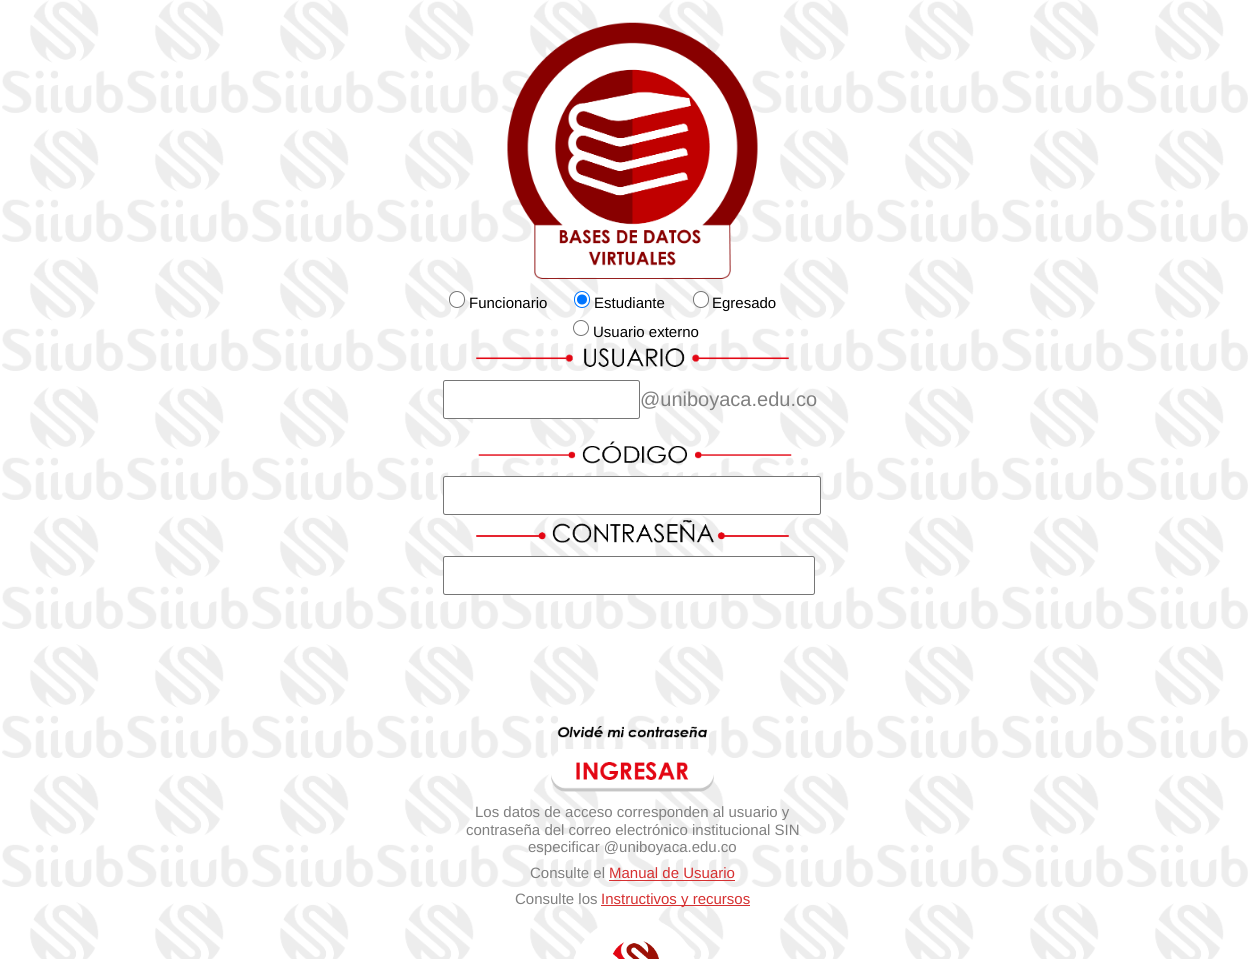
#include <cairo.h>
#include <math.h>
#include <stddef.h>


static void round_rect(cairo_t *cr, double x, double y, double w, double h, double r) {
    cairo_new_sub_path(cr);
    cairo_arc(cr, x + w - r, y + h - r, r, 0, M_PI / 2);
    cairo_arc(cr, x + r, y + h - r, r, M_PI / 2, M_PI);
    cairo_arc(cr, x + r, y + r, r, M_PI, 1.5 * M_PI);
    cairo_arc(cr, x + w - r, y + r, r, 1.5 * M_PI, 2 * M_PI);
    cairo_close_path(cr);
}

static void picture(cairo_t *cr, const char *path, double x, double y, double w, double h) {
    cairo_surface_t *image = cairo_image_surface_create_from_png(path);
    cairo_save(cr);
    cairo_set_source_surface(cr, image, x, y);
    cairo_rectangle(cr, x, y, w, h);
    cairo_fill(cr);
    cairo_restore(cr);
    cairo_surface_destroy(image);
}

int main(void) {
    cairo_surface_t *surface = cairo_image_surface_create(CAIRO_FORMAT_RGB24, 1252, 959);
    cairo_t *cr = cairo_create(surface);
    cairo_font_options_t *options = cairo_font_options_create();
    cairo_font_options_set_hint_metrics(options, CAIRO_HINT_METRICS_OFF);
    cairo_font_options_set_hint_style(options, CAIRO_HINT_STYLE_NONE);
    cairo_set_font_options(cr, options);
    cairo_set_miter_limit(cr, 4);
    cairo_set_source_rgb(cr, 1, 1, 1);
    cairo_paint(cr);
    picture(cr, "img1.png", 2, 0, 1246, 959);
    picture(cr, "img2.png", 507, 22, 251, 257);
    cairo_set_source_rgb(cr, 1, 1, 1);
    round_rect(cr, 449.5, 291.5, 15, 16, 7.5);
    cairo_fill_preserve(cr);
    cairo_set_source_rgb(cr, 0.463, 0.463, 0.463);
    cairo_set_line_width(cr, 1);
    cairo_stroke(cr);
    cairo_select_font_face(cr, "Liberation Sans", CAIRO_FONT_SLANT_NORMAL, CAIRO_FONT_WEIGHT_NORMAL);
    cairo_set_font_size(cr, 15);
    cairo_set_source_rgb(cr, 0, 0, 0);
    cairo_move_to(cr, 469, 308);
    cairo_show_text(cr, "Funcionario");
    cairo_set_source_rgb(cr, 1, 1, 1);
    round_rect(cr, 574.5, 291.5, 15, 16, 7.5);
    cairo_fill_preserve(cr);
    cairo_set_source_rgb(cr, 0, 0.459, 1);
    cairo_stroke(cr);
    cairo_arc(cr, 582, 299.5, 5, 0, 2 * M_PI);
    cairo_fill(cr);
    cairo_set_source_rgb(cr, 0, 0, 0);
    cairo_move_to(cr, 594, 308);
    cairo_show_text(cr, "Estudiante");
    cairo_set_source_rgb(cr, 1, 1, 1);
    round_rect(cr, 693.5, 291.5, 15, 16, 7.5);
    cairo_fill_preserve(cr);
    cairo_set_source_rgb(cr, 0.463, 0.463, 0.463);
    cairo_stroke(cr);
    cairo_set_source_rgb(cr, 0, 0, 0);
    cairo_move_to(cr, 712, 308);
    cairo_show_text(cr, "Egresado");
    cairo_new_path(cr);
    cairo_arc(cr, 581, 328, 7.5, 0, 2 * M_PI);
    cairo_set_source_rgb(cr, 0.463, 0.463, 0.463);
    cairo_stroke(cr);
    cairo_set_source_rgb(cr, 0, 0, 0);
    cairo_move_to(cr, 593, 337);
    cairo_show_text(cr, "Usuario externo");
    picture(cr, "img3.png", 476, 348, 313, 19);
    cairo_set_source_rgb(cr, 1, 1, 1);
    round_rect(cr, 443.5, 380.5, 196, 38, 2);
    cairo_fill_preserve(cr);
    cairo_set_source_rgb(cr, 0.463, 0.463, 0.463);
    cairo_stroke(cr);
    cairo_set_font_size(cr, 20);
    cairo_set_source_rgb(cr, 0.502, 0.502, 0.502);
    cairo_move_to(cr, 640, 406);
    cairo_show_text(cr, "@uniboyaca.edu.co");
    picture(cr, "img4.png", 478, 441, 314, 23);
    cairo_set_source_rgb(cr, 1, 1, 1);
    round_rect(cr, 443.5, 476.5, 377, 38, 2);
    cairo_fill_preserve(cr);
    cairo_set_source_rgb(cr, 0.463, 0.463, 0.463);
    cairo_stroke(cr);
    picture(cr, "img5.png", 476, 520, 313, 23);
    cairo_set_source_rgb(cr, 1, 1, 1);
    round_rect(cr, 443.5, 556.5, 371, 38, 2);
    cairo_fill_preserve(cr);
    cairo_set_source_rgb(cr, 0.463, 0.463, 0.463);
    cairo_stroke(cr);
    picture(cr, "img6.png", 557, 726, 151, 12);
    picture(cr, "img7.png", 551, 749, 163, 43);
    cairo_set_font_size(cr, 15);
    cairo_set_source_rgb(cr, 0.502, 0.502, 0.502);
    cairo_move_to(cr, 475, 817);
    cairo_show_text(cr, "Los datos de acceso corresponden al usuario y");
    cairo_move_to(cr, 466, 835);
    cairo_show_text(cr, "contraseña del correo electrónico institucional SIN");
    cairo_move_to(cr, 528, 852);
    cairo_show_text(cr, "especificar @uniboyaca.edu.co");
    cairo_move_to(cr, 530, 878);
    cairo_show_text(cr, "Consulte el");
    cairo_set_source_rgb(cr, 0.839, 0.188, 0.192);
    cairo_move_to(cr, 609, 878);
    cairo_show_text(cr, "Manual de Usuario");
    cairo_rectangle(cr, 609, 880, 126, 1);
    cairo_fill(cr);
    cairo_set_source_rgb(cr, 0.502, 0.502, 0.502);
    cairo_move_to(cr, 515, 904);
    cairo_show_text(cr, "Consulte los");
    cairo_set_source_rgb(cr, 0.839, 0.188, 0.192);
    cairo_rectangle(cr, 601, 905, 149, 1);
    cairo_fill(cr);
    cairo_move_to(cr, 601, 904);
    cairo_show_text(cr, "Instructivos y recursos");
    picture(cr, "img8.png", 573, 923, 122, 36);
    cairo_surface_write_to_png(surface, "page.png");
    cairo_font_options_destroy(options);
    cairo_destroy(cr);
    cairo_surface_destroy(surface);
    return 0;
}
